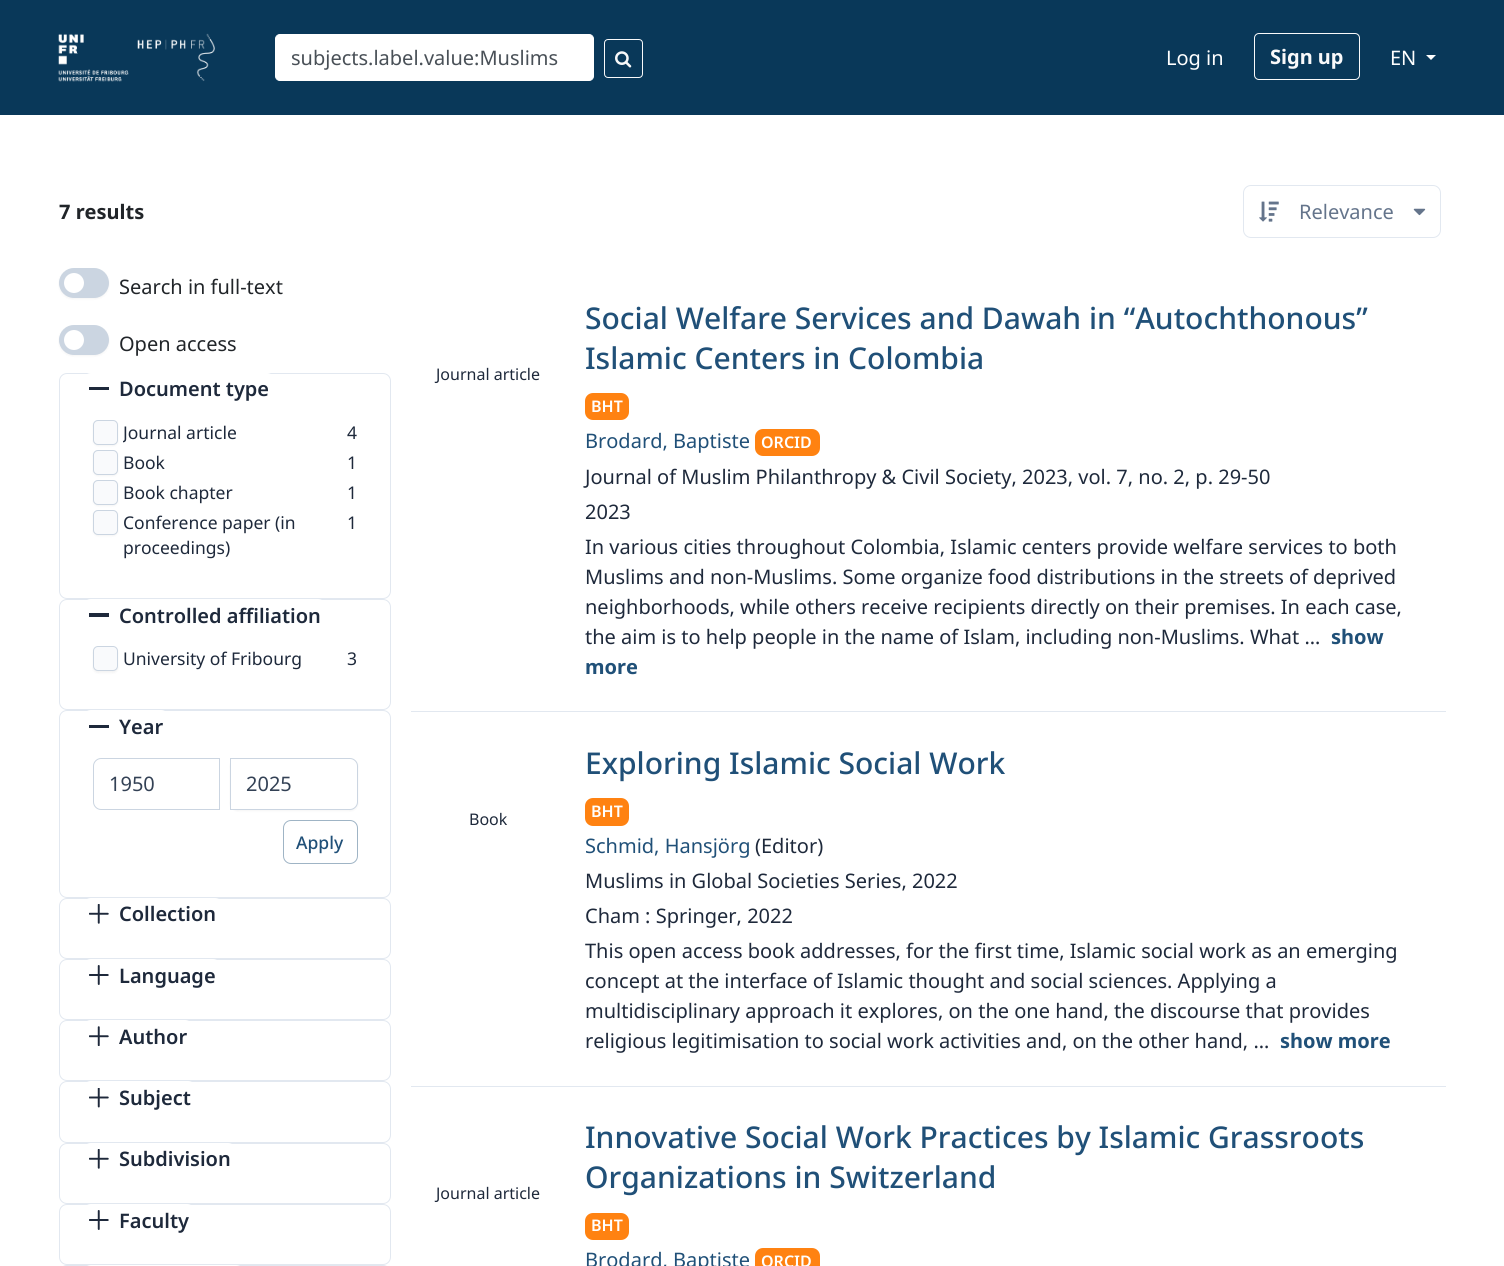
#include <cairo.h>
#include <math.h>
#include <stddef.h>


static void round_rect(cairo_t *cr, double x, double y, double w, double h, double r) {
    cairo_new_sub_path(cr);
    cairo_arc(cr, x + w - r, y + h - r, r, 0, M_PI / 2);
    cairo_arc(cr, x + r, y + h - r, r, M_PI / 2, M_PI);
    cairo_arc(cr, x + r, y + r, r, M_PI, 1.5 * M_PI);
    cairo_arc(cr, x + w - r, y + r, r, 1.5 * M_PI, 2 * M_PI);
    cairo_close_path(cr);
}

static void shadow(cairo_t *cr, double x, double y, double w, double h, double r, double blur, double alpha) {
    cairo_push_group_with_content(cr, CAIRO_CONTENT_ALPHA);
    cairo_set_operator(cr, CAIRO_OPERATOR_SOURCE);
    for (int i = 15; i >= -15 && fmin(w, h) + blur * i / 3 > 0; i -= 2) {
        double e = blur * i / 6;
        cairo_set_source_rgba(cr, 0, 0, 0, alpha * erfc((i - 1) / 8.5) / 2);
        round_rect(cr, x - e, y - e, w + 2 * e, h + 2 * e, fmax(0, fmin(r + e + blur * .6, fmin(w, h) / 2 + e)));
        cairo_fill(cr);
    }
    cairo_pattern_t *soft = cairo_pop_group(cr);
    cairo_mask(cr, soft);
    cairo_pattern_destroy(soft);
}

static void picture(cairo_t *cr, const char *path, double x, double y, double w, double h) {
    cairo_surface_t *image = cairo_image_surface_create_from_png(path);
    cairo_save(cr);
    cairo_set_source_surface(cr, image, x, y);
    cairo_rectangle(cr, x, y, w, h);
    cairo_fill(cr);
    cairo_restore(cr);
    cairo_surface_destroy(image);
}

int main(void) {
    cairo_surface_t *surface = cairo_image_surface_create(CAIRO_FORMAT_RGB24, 1504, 1266);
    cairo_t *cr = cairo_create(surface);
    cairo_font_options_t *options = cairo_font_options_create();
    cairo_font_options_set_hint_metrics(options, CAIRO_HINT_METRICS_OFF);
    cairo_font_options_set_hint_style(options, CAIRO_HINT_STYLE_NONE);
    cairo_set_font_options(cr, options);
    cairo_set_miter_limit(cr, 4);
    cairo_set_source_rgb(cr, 1, 1, 1);
    cairo_paint(cr);
    cairo_set_source_rgb(cr, 0.039, 0.22, 0.349);
    cairo_rectangle(cr, 0, 0, 1504, 115);
    cairo_fill(cr);
    picture(cr, "img1.png", 58, 33, 157, 49);
    cairo_set_source_rgb(cr, 1, 1, 1);
    round_rect(cr, 275.5, 34.5, 318, 46, 4.5);
    cairo_fill_preserve(cr);
    cairo_set_line_width(cr, 1);
    cairo_stroke(cr);
    cairo_select_font_face(cr, "Noto Sans", CAIRO_FONT_SLANT_NORMAL, CAIRO_FONT_WEIGHT_NORMAL);
    cairo_set_font_size(cr, 20);
    cairo_set_source_rgb(cr, 0.286, 0.314, 0.341);
    cairo_move_to(cr, 291, 65);
    cairo_show_text(cr, "subjects.label.value:Muslims");
    round_rect(cr, 604.5, 39.5, 38, 38, 3.5);
    cairo_set_source_rgb(cr, 0.973, 0.976, 0.98);
    cairo_stroke(cr);
    picture(cr, "img2.png", 615, 51, 17, 17);
    cairo_set_source_rgb(cr, 1, 1, 1);
    cairo_move_to(cr, 1166, 65);
    cairo_show_text(cr, "Log in");
    round_rect(cr, 1254.5, 33.5, 105, 46, 4.5);
    cairo_set_source_rgb(cr, 0.973, 0.976, 0.98);
    cairo_stroke(cr);
    cairo_select_font_face(cr, "Noto Sans", CAIRO_FONT_SLANT_NORMAL, CAIRO_FONT_WEIGHT_BOLD);
    cairo_move_to(cr, 1270, 64);
    cairo_show_text(cr, "Sign up");
    cairo_select_font_face(cr, "Noto Sans", CAIRO_FONT_SLANT_NORMAL, CAIRO_FONT_WEIGHT_NORMAL);
    cairo_set_source_rgb(cr, 1, 1, 1);
    cairo_move_to(cr, 1390, 65);
    cairo_show_text(cr, "EN");
    cairo_new_path(cr);
    cairo_move_to(cr, 1426, 55);
    cairo_line_to(cr, 1436, 55);
    cairo_line_to(cr, 1431, 60);
    cairo_close_path(cr);
    cairo_fill(cr);
    cairo_select_font_face(cr, "Noto Sans", CAIRO_FONT_SLANT_NORMAL, CAIRO_FONT_WEIGHT_BOLD);
    cairo_set_source_rgb(cr, 0.129, 0.145, 0.161);
    cairo_move_to(cr, 59, 219);
    cairo_show_text(cr, "7 results");
    round_rect(cr, 1243.5, 185.5, 197, 52, 7.5);
    cairo_set_source_rgb(cr, 0.886, 0.91, 0.941);
    cairo_stroke(cr);
    picture(cr, "img3.png", 1259, 201, 20, 21);
    cairo_select_font_face(cr, "Noto Sans", CAIRO_FONT_SLANT_NORMAL, CAIRO_FONT_WEIGHT_NORMAL);
    cairo_set_source_rgb(cr, 0.392, 0.455, 0.545);
    cairo_move_to(cr, 1299, 219);
    cairo_show_text(cr, "Relevance");
    picture(cr, "img4.png", 1413, 208, 13, 8);
    cairo_set_source_rgb(cr, 0.071, 0.071, 0.09);
    shadow(cr, 59, 269, 50, 30, 15, 1, 0.05);
    cairo_set_source_rgb(cr, 0.796, 0.835, 0.882);
    round_rect(cr, 59, 268, 50, 30, 15);
    cairo_fill(cr);
    cairo_set_source_rgb(cr, 1, 1, 1);
    cairo_arc(cr, 74, 283, 10, 0, 2 * M_PI);
    cairo_fill(cr);
    cairo_set_source_rgb(cr, 0.129, 0.145, 0.161);
    cairo_move_to(cr, 119, 294);
    cairo_show_text(cr, "Search in full-text");
    cairo_set_source_rgb(cr, 0.071, 0.071, 0.09);
    shadow(cr, 59, 326, 50, 30, 15, 1, 0.05);
    cairo_set_source_rgb(cr, 0.796, 0.835, 0.882);
    round_rect(cr, 59, 325, 50, 30, 15);
    cairo_fill(cr);
    cairo_set_source_rgb(cr, 1, 1, 1);
    cairo_arc(cr, 74, 340, 10, 0, 2 * M_PI);
    cairo_fill(cr);
    cairo_set_source_rgb(cr, 0.129, 0.145, 0.161);
    cairo_move_to(cr, 119, 351);
    cairo_show_text(cr, "Open access");
    round_rect(cr, 59.5, 373.5, 331, 225, 7.5);
    cairo_set_source_rgb(cr, 0.886, 0.91, 0.941);
    cairo_stroke(cr);
    cairo_set_source_rgb(cr, 1, 1, 1);
    round_rect(cr, 83, 373, 192, 37, 8);
    cairo_fill(cr);
    cairo_set_source_rgb(cr, 0.118, 0.161, 0.231);
    cairo_rectangle(cr, 89, 387, 20, 3);
    cairo_fill(cr);
    cairo_select_font_face(cr, "Noto Sans SemiBold", CAIRO_FONT_SLANT_NORMAL, CAIRO_FONT_WEIGHT_NORMAL);
    cairo_move_to(cr, 119, 396);
    cairo_show_text(cr, "Document type");
    cairo_set_source_rgb(cr, 0.071, 0.071, 0.09);
    shadow(cr, 93, 421, 25, 25, 5, 1, 0.05);
    cairo_set_source_rgb(cr, 0.973, 0.98, 0.988);
    round_rect(cr, 93.5, 420.5, 24, 24, 4.5);
    cairo_fill_preserve(cr);
    cairo_set_source_rgb(cr, 0.796, 0.835, 0.882);
    cairo_stroke(cr);
    cairo_save(cr);
    cairo_rectangle(cr, 123, 420, 208, 25);
    cairo_clip(cr);
    cairo_select_font_face(cr, "Noto Sans", CAIRO_FONT_SLANT_NORMAL, CAIRO_FONT_WEIGHT_NORMAL);
    cairo_set_font_size(cr, 17.5);
    cairo_set_source_rgb(cr, 0.118, 0.161, 0.231);
    cairo_move_to(cr, 123, 439);
    cairo_show_text(cr, "Journal article");
    cairo_restore(cr);
    cairo_select_font_face(cr, "Noto Sans", CAIRO_FONT_SLANT_NORMAL, CAIRO_FONT_WEIGHT_NORMAL);
    cairo_set_font_size(cr, 17.5);
    cairo_set_source_rgb(cr, 0.118, 0.161, 0.231);
    cairo_move_to(cr, 347, 439);
    cairo_show_text(cr, "4");
    cairo_set_source_rgb(cr, 0.071, 0.071, 0.09);
    shadow(cr, 93, 451, 25, 25, 5, 1, 0.05);
    cairo_set_source_rgb(cr, 0.973, 0.98, 0.988);
    round_rect(cr, 93.5, 450.5, 24, 24, 4.5);
    cairo_fill_preserve(cr);
    cairo_set_source_rgb(cr, 0.796, 0.835, 0.882);
    cairo_stroke(cr);
    cairo_set_source_rgb(cr, 0.118, 0.161, 0.231);
    cairo_move_to(cr, 123, 469);
    cairo_show_text(cr, "Book");
    cairo_move_to(cr, 347, 469);
    cairo_show_text(cr, "1");
    cairo_set_source_rgb(cr, 0.071, 0.071, 0.09);
    shadow(cr, 93, 481, 25, 25, 5, 1, 0.05);
    cairo_set_source_rgb(cr, 0.973, 0.98, 0.988);
    round_rect(cr, 93.5, 480.5, 24, 24, 4.5);
    cairo_fill_preserve(cr);
    cairo_set_source_rgb(cr, 0.796, 0.835, 0.882);
    cairo_stroke(cr);
    cairo_set_source_rgb(cr, 0.118, 0.161, 0.231);
    cairo_move_to(cr, 123, 499);
    cairo_show_text(cr, "Book chapter");
    cairo_move_to(cr, 347, 499);
    cairo_show_text(cr, "1");
    cairo_set_source_rgb(cr, 0.071, 0.071, 0.09);
    shadow(cr, 93, 511, 25, 25, 5, 1, 0.05);
    cairo_set_source_rgb(cr, 0.973, 0.98, 0.988);
    round_rect(cr, 93.5, 510.5, 24, 24, 4.5);
    cairo_fill_preserve(cr);
    cairo_set_source_rgb(cr, 0.796, 0.835, 0.882);
    cairo_stroke(cr);
    cairo_set_source_rgb(cr, 0.118, 0.161, 0.231);
    cairo_move_to(cr, 123, 529);
    cairo_show_text(cr, "Conference paper (in");
    cairo_move_to(cr, 123, 554);
    cairo_show_text(cr, "proceedings)");
    cairo_move_to(cr, 347, 529);
    cairo_show_text(cr, "1");
    round_rect(cr, 59.5, 599.5, 331, 110, 7.5);
    cairo_set_source_rgb(cr, 0.886, 0.91, 0.941);
    cairo_stroke(cr);
    cairo_set_source_rgb(cr, 1, 1, 1);
    round_rect(cr, 83, 599, 243, 37, 8);
    cairo_fill(cr);
    cairo_set_source_rgb(cr, 0.118, 0.161, 0.231);
    cairo_rectangle(cr, 89, 613, 20, 4);
    cairo_fill(cr);
    cairo_select_font_face(cr, "Noto Sans SemiBold", CAIRO_FONT_SLANT_NORMAL, CAIRO_FONT_WEIGHT_NORMAL);
    cairo_set_font_size(cr, 20);
    cairo_move_to(cr, 119, 623);
    cairo_show_text(cr, "Controlled affiliation");
    cairo_set_source_rgb(cr, 0.071, 0.071, 0.09);
    shadow(cr, 93, 648, 25, 25, 5, 1, 0.05);
    cairo_set_source_rgb(cr, 0.973, 0.98, 0.988);
    round_rect(cr, 93.5, 646.5, 24, 24, 4.5);
    cairo_fill_preserve(cr);
    cairo_set_source_rgb(cr, 0.796, 0.835, 0.882);
    cairo_stroke(cr);
    cairo_select_font_face(cr, "Noto Sans", CAIRO_FONT_SLANT_NORMAL, CAIRO_FONT_WEIGHT_NORMAL);
    cairo_set_font_size(cr, 17.5);
    cairo_set_source_rgb(cr, 0.118, 0.161, 0.231);
    cairo_move_to(cr, 123, 665);
    cairo_show_text(cr, "University of Fribourg");
    cairo_move_to(cr, 347, 665);
    cairo_show_text(cr, "3");
    round_rect(cr, 59.5, 710.5, 331, 187, 7.5);
    cairo_set_source_rgb(cr, 0.886, 0.91, 0.941);
    cairo_stroke(cr);
    cairo_set_source_rgb(cr, 1, 1, 1);
    round_rect(cr, 83, 710, 86, 38, 8);
    cairo_fill(cr);
    cairo_set_source_rgb(cr, 0.118, 0.161, 0.231);
    cairo_rectangle(cr, 89, 725, 20, 3);
    cairo_fill(cr);
    cairo_select_font_face(cr, "Noto Sans SemiBold", CAIRO_FONT_SLANT_NORMAL, CAIRO_FONT_WEIGHT_NORMAL);
    cairo_set_font_size(cr, 20);
    cairo_move_to(cr, 119, 734);
    cairo_show_text(cr, "Year");
    cairo_new_path(cr);
    cairo_move_to(cr, 101, 758.5);
    cairo_line_to(cr, 219.5, 758.5);
    cairo_line_to(cr, 219.5, 809.5);
    cairo_line_to(cr, 101, 809.5);
    cairo_curve_to(cr, 97, 809.5, 93.5, 806, 93.5, 802);
    cairo_line_to(cr, 93.5, 766);
    cairo_curve_to(cr, 93.5, 762, 97, 758.5, 101, 758.5);
    cairo_close_path(cr);
    cairo_set_source_rgb(cr, 0.796, 0.835, 0.882);
    cairo_stroke(cr);
    cairo_select_font_face(cr, "Noto Sans", CAIRO_FONT_SLANT_NORMAL, CAIRO_FONT_WEIGHT_NORMAL);
    cairo_set_source_rgb(cr, 0.2, 0.255, 0.333);
    cairo_move_to(cr, 109, 791);
    cairo_show_text(cr, "1950");
    cairo_set_source_rgb(cr, 0.071, 0.071, 0.09);
    shadow(cr, 230, 759, 128, 52, 8, 1, 0.05);
    cairo_set_source_rgb(cr, 1, 1, 1);
    cairo_new_path(cr);
    cairo_move_to(cr, 230.5, 758.5);
    cairo_line_to(cr, 350, 758.5);
    cairo_curve_to(cr, 354, 758.5, 357.5, 762, 357.5, 766);
    cairo_line_to(cr, 357.5, 802);
    cairo_curve_to(cr, 357.5, 806, 354, 809.5, 350, 809.5);
    cairo_line_to(cr, 230.5, 809.5);
    cairo_close_path(cr);
    cairo_fill_preserve(cr);
    cairo_set_source_rgb(cr, 0.796, 0.835, 0.882);
    cairo_stroke(cr);
    cairo_set_source_rgb(cr, 0.2, 0.255, 0.333);
    cairo_move_to(cr, 246, 791);
    cairo_show_text(cr, "2025");
    round_rect(cr, 283.5, 820.5, 74, 43, 7.5);
    cairo_set_source_rgb(cr, 0.624, 0.706, 0.773);
    cairo_stroke(cr);
    cairo_select_font_face(cr, "Noto Sans Medium", CAIRO_FONT_SLANT_NORMAL, CAIRO_FONT_WEIGHT_NORMAL);
    cairo_set_font_size(cr, 17.5);
    cairo_set_source_rgb(cr, 0.125, 0.314, 0.471);
    cairo_move_to(cr, 296, 849);
    cairo_show_text(cr, "Apply");
    round_rect(cr, 59.5, 898.5, 331, 60, 7.5);
    cairo_set_source_rgb(cr, 0.886, 0.91, 0.941);
    cairo_stroke(cr);
    cairo_set_source_rgb(cr, 1, 1, 1);
    round_rect(cr, 83, 898, 140, 37, 8);
    cairo_fill(cr);
    picture(cr, "img5.png", 89, 904, 20, 20);
    cairo_select_font_face(cr, "Noto Sans SemiBold", CAIRO_FONT_SLANT_NORMAL, CAIRO_FONT_WEIGHT_NORMAL);
    cairo_set_font_size(cr, 20);
    cairo_set_source_rgb(cr, 0.118, 0.161, 0.231);
    cairo_move_to(cr, 119, 921);
    cairo_show_text(cr, "Collection");
    round_rect(cr, 59.5, 959.5, 331, 60, 7.5);
    cairo_set_source_rgb(cr, 0.886, 0.91, 0.941);
    cairo_stroke(cr);
    cairo_set_source_rgb(cr, 1, 1, 1);
    round_rect(cr, 83, 959, 138, 37, 8);
    cairo_fill(cr);
    picture(cr, "img6.png", 89, 965, 20, 20);
    cairo_set_source_rgb(cr, 0.118, 0.161, 0.231);
    cairo_move_to(cr, 119, 983);
    cairo_show_text(cr, "Language");
    round_rect(cr, 59.5, 1020.5, 331, 60, 7.5);
    cairo_set_source_rgb(cr, 0.886, 0.91, 0.941);
    cairo_stroke(cr);
    cairo_set_source_rgb(cr, 1, 1, 1);
    round_rect(cr, 83, 1020, 110, 38, 8);
    cairo_fill(cr);
    picture(cr, "img7.png", 89, 1026, 20, 20);
    cairo_set_source_rgb(cr, 0.118, 0.161, 0.231);
    cairo_move_to(cr, 119, 1044);
    cairo_show_text(cr, "Author");
    round_rect(cr, 59.5, 1081.5, 331, 61, 7.5);
    cairo_set_source_rgb(cr, 0.886, 0.91, 0.941);
    cairo_stroke(cr);
    cairo_set_source_rgb(cr, 1, 1, 1);
    round_rect(cr, 83, 1081, 113, 38, 8);
    cairo_fill(cr);
    picture(cr, "img8.png", 89, 1088, 20, 20);
    cairo_set_source_rgb(cr, 0.118, 0.161, 0.231);
    cairo_move_to(cr, 119, 1105);
    cairo_show_text(cr, "Subject");
    round_rect(cr, 59.5, 1143.5, 331, 60, 7.5);
    cairo_set_source_rgb(cr, 0.886, 0.91, 0.941);
    cairo_stroke(cr);
    cairo_set_source_rgb(cr, 1, 1, 1);
    round_rect(cr, 83, 1143, 153, 37, 8);
    cairo_fill(cr);
    picture(cr, "img5.png", 89, 1149, 20, 20);
    cairo_set_source_rgb(cr, 0.118, 0.161, 0.231);
    cairo_move_to(cr, 119, 1166);
    cairo_show_text(cr, "Subdivision");
    round_rect(cr, 59.5, 1204.5, 331, 60, 7.5);
    cairo_set_source_rgb(cr, 0.886, 0.91, 0.941);
    cairo_stroke(cr);
    cairo_set_source_rgb(cr, 1, 1, 1);
    round_rect(cr, 83, 1204, 112, 37, 8);
    cairo_fill(cr);
    picture(cr, "img6.png", 89, 1210, 20, 20);
    cairo_set_source_rgb(cr, 0.118, 0.161, 0.231);
    cairo_move_to(cr, 119, 1228);
    cairo_show_text(cr, "Faculty");
    round_rect(cr, 59.5, 1265.5, 331, 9, 7.5);
    cairo_set_source_rgb(cr, 0.886, 0.91, 0.941);
    cairo_stroke(cr);
    cairo_set_source_rgb(cr, 1, 1, 1);
    round_rect(cr, 83, 1265, 161, 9, 8);
    cairo_fill(cr);
    cairo_select_font_face(cr, "Noto Sans", CAIRO_FONT_SLANT_NORMAL, CAIRO_FONT_WEIGHT_NORMAL);
    cairo_set_font_size(cr, 16);
    cairo_set_source_rgb(cr, 0.118, 0.161, 0.231);
    cairo_move_to(cr, 436, 380);
    cairo_show_text(cr, "Journal article");
    cairo_select_font_face(cr, "Noto Sans Medium", CAIRO_FONT_SLANT_NORMAL, CAIRO_FONT_WEIGHT_NORMAL);
    cairo_set_font_size(cr, 30);
    cairo_set_source_rgb(cr, 0.125, 0.314, 0.471);
    cairo_move_to(cr, 585, 329);
    cairo_show_text(cr, "Social Welfare Services and Dawah in “Autochthonous”");
    cairo_move_to(cr, 585, 369);
    cairo_show_text(cr, "Islamic Centers in Colombia");
    cairo_set_source_rgb(cr, 1, 0.51, 0.067);
    round_rect(cr, 585, 393, 44, 27, 8);
    cairo_fill(cr);
    cairo_select_font_face(cr, "Noto Sans SemiBold", CAIRO_FONT_SLANT_NORMAL, CAIRO_FONT_WEIGHT_NORMAL);
    cairo_set_font_size(cr, 16);
    cairo_set_source_rgb(cr, 1, 1, 1);
    cairo_move_to(cr, 591, 412);
    cairo_show_text(cr, "BHT");
    cairo_select_font_face(cr, "Noto Sans", CAIRO_FONT_SLANT_NORMAL, CAIRO_FONT_WEIGHT_NORMAL);
    cairo_set_font_size(cr, 20);
    cairo_set_source_rgb(cr, 0.125, 0.314, 0.471);
    cairo_move_to(cr, 585, 448);
    cairo_show_text(cr, "Brodard, Baptiste");
    cairo_set_source_rgb(cr, 1, 0.51, 0.067);
    round_rect(cr, 755, 429, 65, 27, 8);
    cairo_fill(cr);
    cairo_select_font_face(cr, "Noto Sans SemiBold", CAIRO_FONT_SLANT_NORMAL, CAIRO_FONT_WEIGHT_NORMAL);
    cairo_set_font_size(cr, 16);
    cairo_set_source_rgb(cr, 1, 1, 1);
    cairo_move_to(cr, 761, 448);
    cairo_show_text(cr, "ORCID");
    cairo_select_font_face(cr, "Noto Sans", CAIRO_FONT_SLANT_NORMAL, CAIRO_FONT_WEIGHT_NORMAL);
    cairo_set_font_size(cr, 20);
    cairo_set_source_rgb(cr, 0.118, 0.161, 0.231);
    cairo_move_to(cr, 585, 484);
    cairo_show_text(cr, "Journal of Muslim Philanthropy & Civil Society, 2023, vol. 7, no. 2, p. 29-50");
    cairo_move_to(cr, 585, 519);
    cairo_show_text(cr, "2023");
    cairo_move_to(cr, 585, 554);
    cairo_show_text(cr, "In various cities throughout Colombia, Islamic centers provide welfare services to both");
    cairo_move_to(cr, 585, 584);
    cairo_show_text(cr, "Muslims and non-Muslims. Some organize food distributions in the streets of deprived");
    cairo_move_to(cr, 585, 614);
    cairo_show_text(cr, "neighborhoods, while others receive recipients directly on their premises. In each case,");
    cairo_move_to(cr, 585, 644);
    cairo_show_text(cr, "the aim is to help people in the name of Islam, including non-Muslims. What …");
    cairo_select_font_face(cr, "Noto Sans", CAIRO_FONT_SLANT_NORMAL, CAIRO_FONT_WEIGHT_BOLD);
    cairo_set_source_rgb(cr, 0.125, 0.314, 0.471);
    cairo_move_to(cr, 1331, 644);
    cairo_show_text(cr, "show");
    cairo_move_to(cr, 585, 674);
    cairo_show_text(cr, "more");
    cairo_set_source_rgb(cr, 0.886, 0.91, 0.941);
    cairo_rectangle(cr, 411, 711, 1035, 1);
    cairo_fill(cr);
    cairo_select_font_face(cr, "Noto Sans", CAIRO_FONT_SLANT_NORMAL, CAIRO_FONT_WEIGHT_NORMAL);
    cairo_set_font_size(cr, 16);
    cairo_set_source_rgb(cr, 0.118, 0.161, 0.231);
    cairo_move_to(cr, 469, 825);
    cairo_show_text(cr, "Book");
    cairo_select_font_face(cr, "Noto Sans Medium", CAIRO_FONT_SLANT_NORMAL, CAIRO_FONT_WEIGHT_NORMAL);
    cairo_set_font_size(cr, 30);
    cairo_set_source_rgb(cr, 0.125, 0.314, 0.471);
    cairo_move_to(cr, 585, 774);
    cairo_show_text(cr, "Exploring Islamic Social Work");
    cairo_set_source_rgb(cr, 1, 0.51, 0.067);
    round_rect(cr, 585, 798, 44, 28, 8);
    cairo_fill(cr);
    cairo_select_font_face(cr, "Noto Sans SemiBold", CAIRO_FONT_SLANT_NORMAL, CAIRO_FONT_WEIGHT_NORMAL);
    cairo_set_font_size(cr, 16);
    cairo_set_source_rgb(cr, 1, 1, 1);
    cairo_move_to(cr, 591, 817);
    cairo_show_text(cr, "BHT");
    cairo_select_font_face(cr, "Noto Sans", CAIRO_FONT_SLANT_NORMAL, CAIRO_FONT_WEIGHT_NORMAL);
    cairo_set_font_size(cr, 20);
    cairo_set_source_rgb(cr, 0.125, 0.314, 0.471);
    cairo_move_to(cr, 585, 853);
    cairo_show_text(cr, "Schmid, Hansjörg");
    cairo_set_source_rgb(cr, 0.118, 0.161, 0.231);
    cairo_move_to(cr, 755, 853);
    cairo_show_text(cr, "(Editor)");
    cairo_move_to(cr, 585, 888);
    cairo_show_text(cr, "Muslims in Global Societies Series, 2022");
    cairo_move_to(cr, 585, 923);
    cairo_show_text(cr, "Cham : Springer, 2022");
    cairo_move_to(cr, 585, 958);
    cairo_show_text(cr, "This open access book addresses, for the first time, Islamic social work as an emerging");
    cairo_move_to(cr, 585, 988);
    cairo_show_text(cr, "concept at the interface of Islamic thought and social sciences. Applying a");
    cairo_move_to(cr, 585, 1018);
    cairo_show_text(cr, "multidisciplinary approach it explores, on the one hand, the discourse that provides");
    cairo_move_to(cr, 585, 1048);
    cairo_show_text(cr, "religious legitimisation to social work activities and, on the other hand, …");
    cairo_select_font_face(cr, "Noto Sans", CAIRO_FONT_SLANT_NORMAL, CAIRO_FONT_WEIGHT_BOLD);
    cairo_set_source_rgb(cr, 0.125, 0.314, 0.471);
    cairo_move_to(cr, 1280, 1048);
    cairo_show_text(cr, "show more");
    cairo_set_source_rgb(cr, 0.886, 0.91, 0.941);
    cairo_rectangle(cr, 411, 1086, 1035, 1);
    cairo_fill(cr);
    cairo_select_font_face(cr, "Noto Sans", CAIRO_FONT_SLANT_NORMAL, CAIRO_FONT_WEIGHT_NORMAL);
    cairo_set_font_size(cr, 16);
    cairo_set_source_rgb(cr, 0.118, 0.161, 0.231);
    cairo_move_to(cr, 436, 1199);
    cairo_show_text(cr, "Journal article");
    cairo_select_font_face(cr, "Noto Sans Medium", CAIRO_FONT_SLANT_NORMAL, CAIRO_FONT_WEIGHT_NORMAL);
    cairo_set_font_size(cr, 30);
    cairo_set_source_rgb(cr, 0.125, 0.314, 0.471);
    cairo_move_to(cr, 585, 1148);
    cairo_show_text(cr, "Innovative Social Work Practices by Islamic Grassroots");
    cairo_move_to(cr, 585, 1188);
    cairo_show_text(cr, "Organizations in Switzerland");
    cairo_set_source_rgb(cr, 1, 0.51, 0.067);
    round_rect(cr, 585, 1213, 44, 27, 8);
    cairo_fill(cr);
    cairo_select_font_face(cr, "Noto Sans SemiBold", CAIRO_FONT_SLANT_NORMAL, CAIRO_FONT_WEIGHT_NORMAL);
    cairo_set_font_size(cr, 16);
    cairo_set_source_rgb(cr, 1, 1, 1);
    cairo_move_to(cr, 591, 1231);
    cairo_show_text(cr, "BHT");
    cairo_select_font_face(cr, "Noto Sans", CAIRO_FONT_SLANT_NORMAL, CAIRO_FONT_WEIGHT_NORMAL);
    cairo_set_font_size(cr, 20);
    cairo_set_source_rgb(cr, 0.125, 0.314, 0.471);
    cairo_move_to(cr, 585, 1267);
    cairo_show_text(cr, "Brodard, Baptiste");
    cairo_set_source_rgb(cr, 1, 0.51, 0.067);
    round_rect(cr, 755, 1248, 65, 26, 8);
    cairo_fill(cr);
    cairo_select_font_face(cr, "Noto Sans SemiBold", CAIRO_FONT_SLANT_NORMAL, CAIRO_FONT_WEIGHT_NORMAL);
    cairo_set_font_size(cr, 16);
    cairo_set_source_rgb(cr, 1, 1, 1);
    cairo_move_to(cr, 761, 1267);
    cairo_show_text(cr, "ORCID");
    cairo_surface_write_to_png(surface, "page.png");
    cairo_font_options_destroy(options);
    cairo_destroy(cr);
    cairo_surface_destroy(surface);
    return 0;
}
